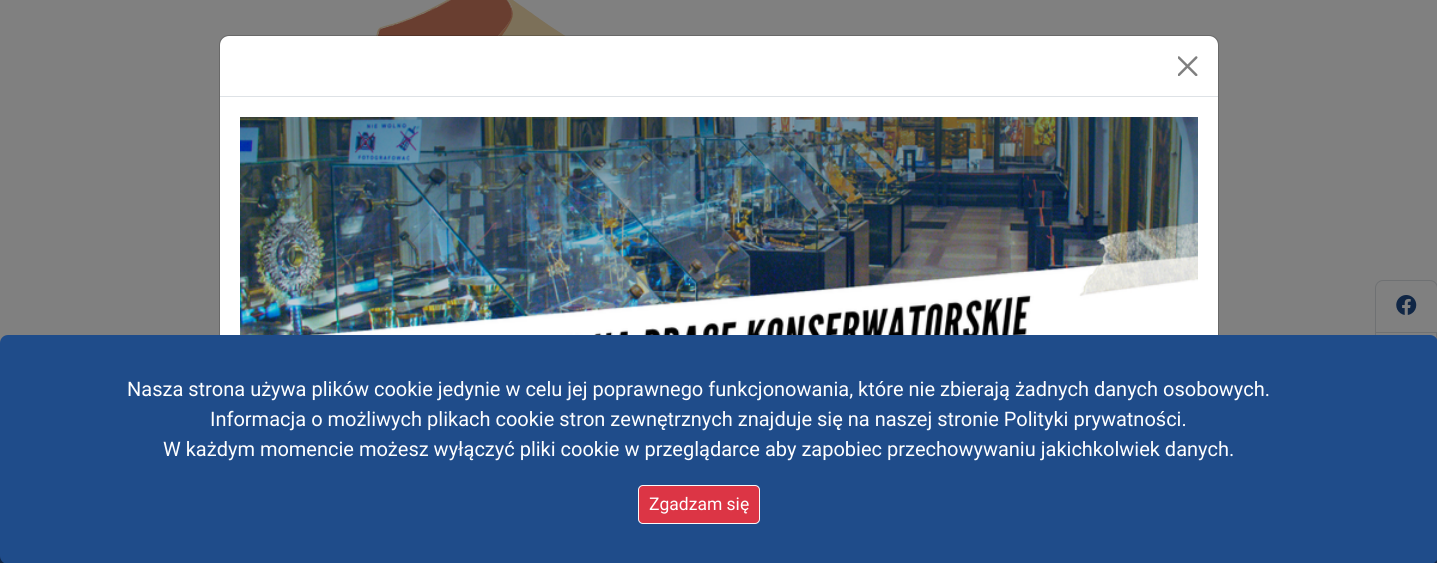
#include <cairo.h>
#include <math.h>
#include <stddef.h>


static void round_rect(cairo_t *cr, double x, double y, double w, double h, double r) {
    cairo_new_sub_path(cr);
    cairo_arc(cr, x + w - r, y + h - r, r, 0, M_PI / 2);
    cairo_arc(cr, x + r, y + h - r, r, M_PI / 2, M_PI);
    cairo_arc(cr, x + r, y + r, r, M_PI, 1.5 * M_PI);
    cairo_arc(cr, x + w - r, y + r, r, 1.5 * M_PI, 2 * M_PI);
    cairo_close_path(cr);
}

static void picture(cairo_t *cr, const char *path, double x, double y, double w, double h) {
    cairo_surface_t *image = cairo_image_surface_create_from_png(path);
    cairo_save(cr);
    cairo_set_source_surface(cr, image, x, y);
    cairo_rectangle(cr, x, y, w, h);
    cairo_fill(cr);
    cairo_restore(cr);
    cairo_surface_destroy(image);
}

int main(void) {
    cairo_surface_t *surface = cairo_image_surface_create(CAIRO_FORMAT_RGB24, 1437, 563);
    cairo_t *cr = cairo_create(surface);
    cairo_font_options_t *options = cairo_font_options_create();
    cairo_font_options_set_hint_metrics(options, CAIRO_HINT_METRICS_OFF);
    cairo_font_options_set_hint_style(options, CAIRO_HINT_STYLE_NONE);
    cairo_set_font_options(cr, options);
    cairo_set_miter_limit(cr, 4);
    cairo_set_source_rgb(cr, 0.502, 0.502, 0.502);
    cairo_paint(cr);
    picture(cr, "img1.png", 376, 0, 190, 36);
    cairo_set_source_rgb(cr, 0.063, 0.149, 0.271);
    cairo_rectangle(cr, 0, 556, 1437, 7);
    cairo_fill(cr);
    cairo_set_source_rgb(cr, 1, 1, 1);
    cairo_new_path(cr);
    cairo_move_to(cr, 229, 36);
    cairo_line_to(cr, 1209, 36);
    cairo_curve_to(cr, 1214, 36, 1218, 40, 1218, 45);
    cairo_line_to(cr, 1218, 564);
    cairo_line_to(cr, 220, 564);
    cairo_line_to(cr, 220, 45);
    cairo_curve_to(cr, 220, 40, 224, 36, 229, 36);
    cairo_close_path(cr);
    cairo_fill(cr);
    round_rect(cr, 219.5, 35.5, 999, 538, 9.5);
    cairo_set_source_rgba(cr, 0, 0, 0, 0.18);
    cairo_set_line_width(cr, 1);
    cairo_stroke(cr);
    cairo_set_source_rgb(cr, 0.871, 0.886, 0.902);
    cairo_rectangle(cr, 220, 96, 998, 1);
    cairo_fill(cr);
    picture(cr, "img2.png", 1178, 56, 20, 20);
    picture(cr, "img3.png", 240, 117, 958, 218);
    cairo_new_path(cr);
    cairo_move_to(cr, 1383, 280.5);
    cairo_line_to(cr, 1430, 280.5);
    cairo_curve_to(cr, 1434, 280.5, 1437.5, 284, 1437.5, 288);
    cairo_line_to(cr, 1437.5, 332.5);
    cairo_line_to(cr, 1375.5, 332.5);
    cairo_line_to(cr, 1375.5, 288);
    cairo_curve_to(cr, 1375.5, 284, 1379, 280.5, 1383, 280.5);
    cairo_close_path(cr);
    cairo_set_source_rgb(cr, 0.435, 0.443, 0.451);
    cairo_stroke(cr);
    picture(cr, "img4.png", 1396, 295, 21, 20);
    cairo_rectangle(cr, 1436, 333, 1, 7);
    cairo_fill(cr);
    cairo_rectangle(cr, 1375, 333, 1, 2);
    cairo_fill(cr);
    cairo_set_source_rgb(cr, 0.122, 0.298, 0.541);
    round_rect(cr, 0, 335, 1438, 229, 8);
    cairo_fill(cr);
    cairo_select_font_face(cr, "Roboto", CAIRO_FONT_SLANT_NORMAL, CAIRO_FONT_WEIGHT_NORMAL);
    cairo_set_font_size(cr, 20);
    cairo_set_source_rgb(cr, 1, 1, 1);
    cairo_move_to(cr, 127, 396);
    cairo_show_text(cr, "Nasza strona używa plików cookie jedynie w celu jej poprawnego funkcjonowania, które nie zbierają żadnych danych osobowych.");
    cairo_move_to(cr, 210, 426);
    cairo_show_text(cr, "Informacja o możliwych plikach cookie stron zewnętrznych znajduje się na naszej stronie Polityki prywatności.");
    cairo_move_to(cr, 163, 456);
    cairo_show_text(cr, "W każdym momencie możesz wyłączyć pliki cookie w przeglądarce aby zapobiec przechowywaniu jakichkolwiek danych.");
    cairo_set_source_rgb(cr, 0.863, 0.208, 0.271);
    round_rect(cr, 638.5, 485.5, 121, 38, 4.5);
    cairo_fill_preserve(cr);
    cairo_set_source_rgb(cr, 0.973, 0.976, 0.98);
    cairo_stroke(cr);
    cairo_set_font_size(cr, 17.5);
    cairo_set_source_rgb(cr, 1, 1, 1);
    cairo_move_to(cr, 649, 510);
    cairo_show_text(cr, "Zgadzam się");
    cairo_surface_write_to_png(surface, "page.png");
    cairo_font_options_destroy(options);
    cairo_destroy(cr);
    cairo_surface_destroy(surface);
    return 0;
}
